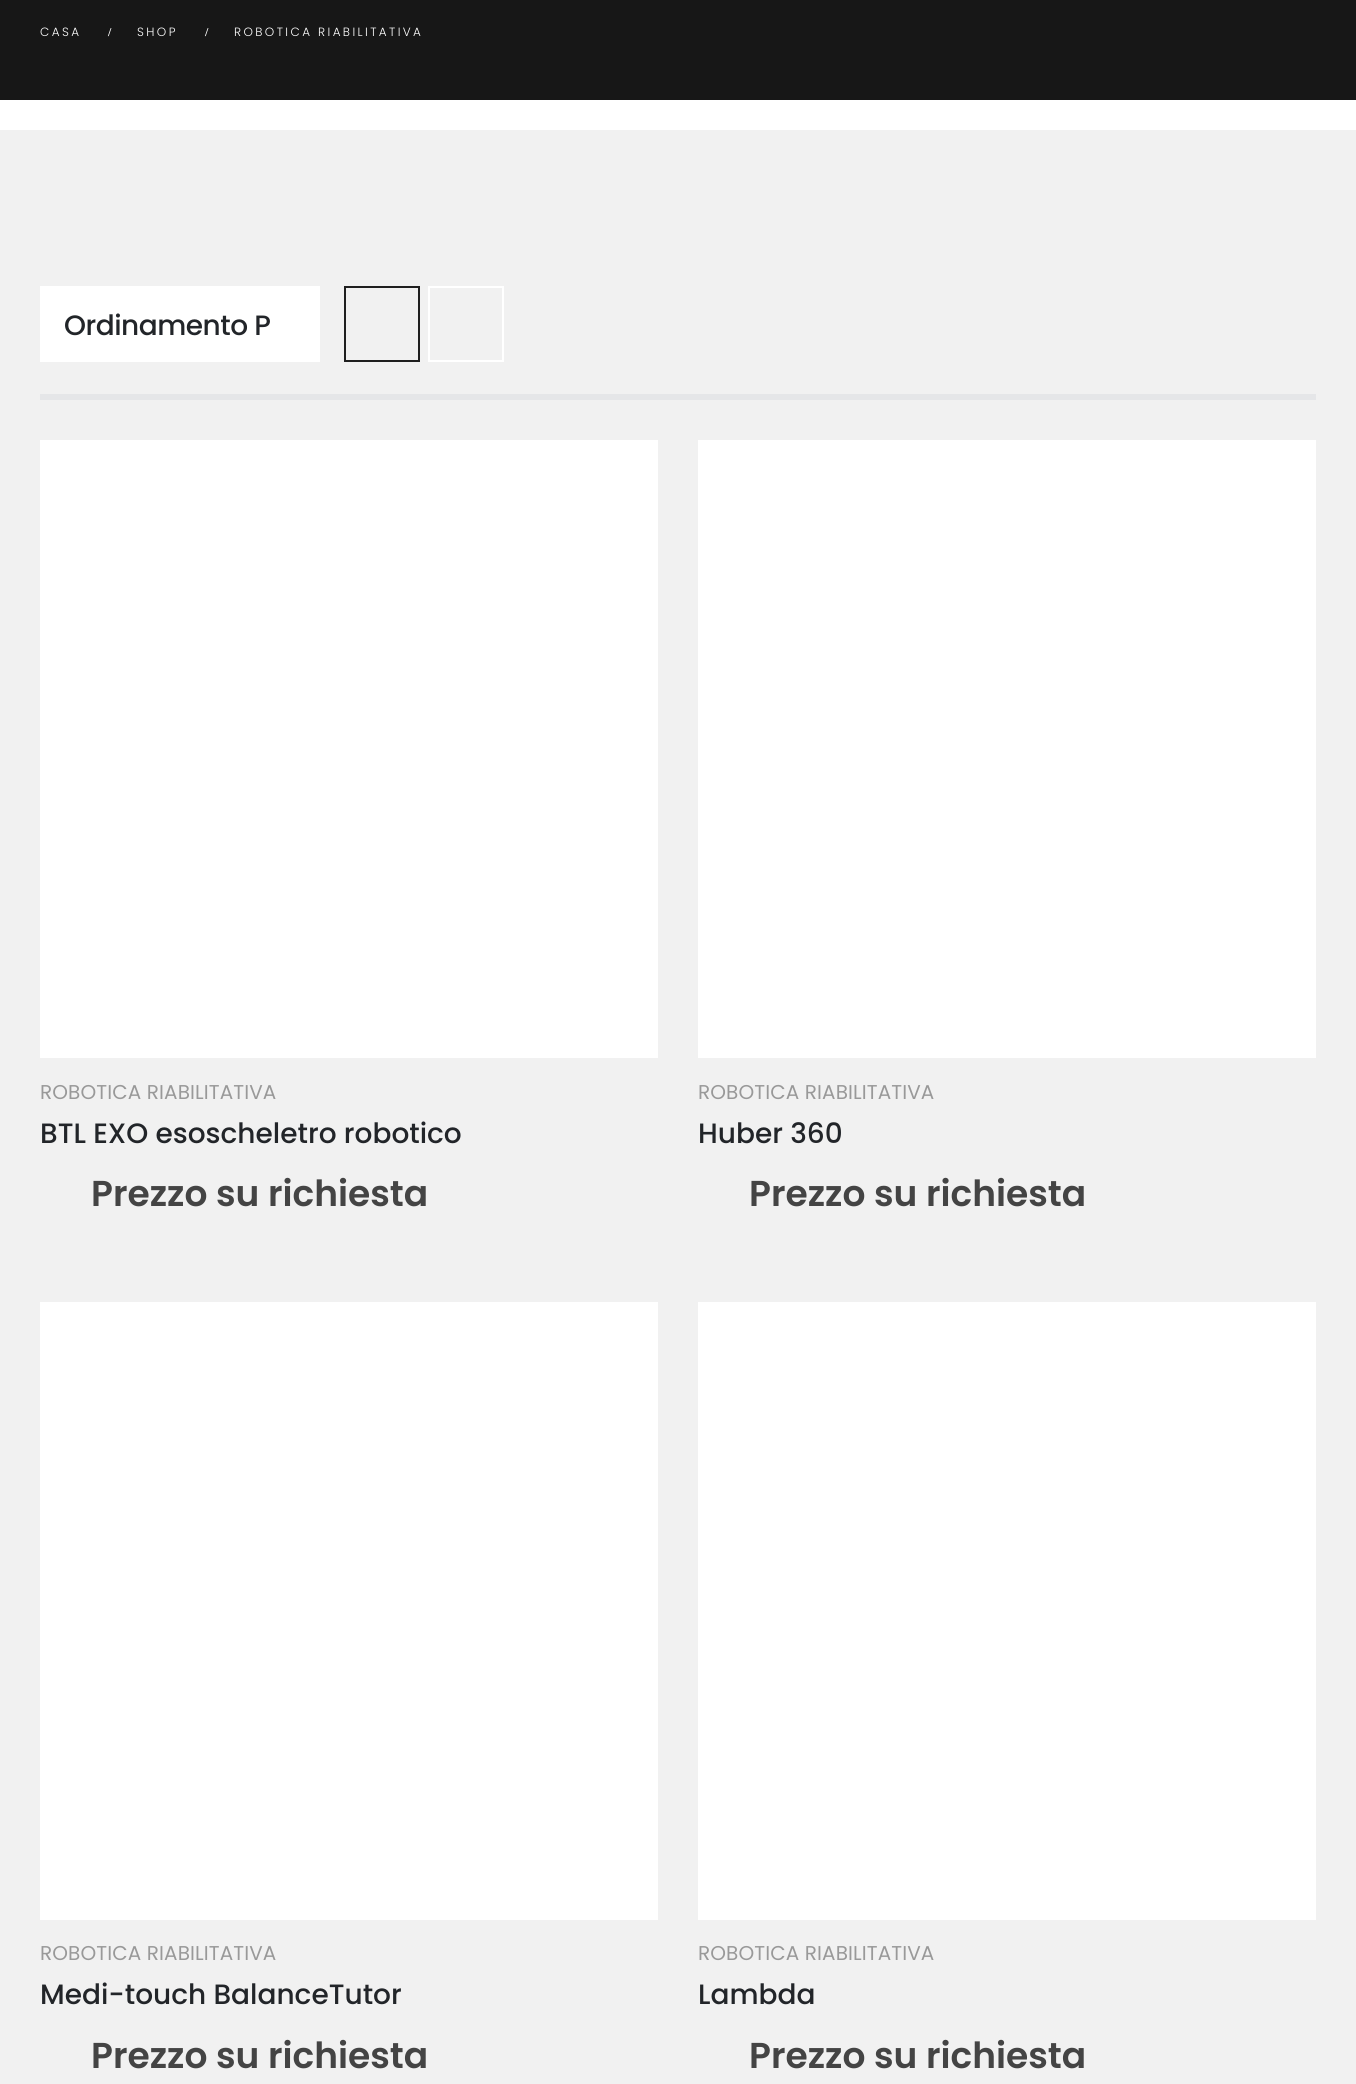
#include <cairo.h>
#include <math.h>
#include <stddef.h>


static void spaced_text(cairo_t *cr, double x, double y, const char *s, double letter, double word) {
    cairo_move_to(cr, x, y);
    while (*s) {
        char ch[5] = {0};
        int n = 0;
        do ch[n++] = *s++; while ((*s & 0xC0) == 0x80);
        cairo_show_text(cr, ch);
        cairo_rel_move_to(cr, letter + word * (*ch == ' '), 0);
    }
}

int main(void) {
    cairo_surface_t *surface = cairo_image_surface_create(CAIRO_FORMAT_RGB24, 1356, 2084);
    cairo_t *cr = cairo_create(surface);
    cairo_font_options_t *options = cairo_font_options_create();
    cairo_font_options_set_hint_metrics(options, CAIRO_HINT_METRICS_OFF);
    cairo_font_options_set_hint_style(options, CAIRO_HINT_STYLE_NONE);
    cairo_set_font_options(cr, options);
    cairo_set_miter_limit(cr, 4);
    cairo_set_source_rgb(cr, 1, 1, 1);
    cairo_paint(cr);
    cairo_set_source_rgb(cr, 0.09, 0.09, 0.09);
    cairo_rectangle(cr, 0, 0, 1356, 100);
    cairo_fill(cr);
    cairo_select_font_face(cr, "Poppins Light", CAIRO_FONT_SLANT_NORMAL, CAIRO_FONT_WEIGHT_NORMAL);
    cairo_set_font_size(cr, 12);
    cairo_set_source_rgb(cr, 1, 1, 1);
    spaced_text(cr, 40, 36, "CASA", 2.4, 0);
    cairo_select_font_face(cr, "Liberation Serif", CAIRO_FONT_SLANT_NORMAL, CAIRO_FONT_WEIGHT_BOLD);
    spaced_text(cr, 108, 36, "/", 2.4, 0);
    cairo_select_font_face(cr, "Poppins Light", CAIRO_FONT_SLANT_NORMAL, CAIRO_FONT_WEIGHT_NORMAL);
    spaced_text(cr, 137, 36, "SHOP", 2.4, 0);
    cairo_select_font_face(cr, "Liberation Serif", CAIRO_FONT_SLANT_NORMAL, CAIRO_FONT_WEIGHT_BOLD);
    spaced_text(cr, 205, 36, "/", 2.4, 0);
    cairo_select_font_face(cr, "Poppins Light", CAIRO_FONT_SLANT_NORMAL, CAIRO_FONT_WEIGHT_NORMAL);
    spaced_text(cr, 234, 36, "ROBOTICA RIABILITATIVA", 2.4, 0);
    cairo_set_source_rgb(cr, 0.945, 0.945, 0.945);
    cairo_rectangle(cr, 0, 130, 1356, 1954);
    cairo_fill(cr);
    cairo_set_source_rgb(cr, 0.898, 0.902, 0.91);
    cairo_rectangle(cr, 40, 394, 1276, 6);
    cairo_fill(cr);
    cairo_set_source_rgb(cr, 1, 1, 1);
    cairo_rectangle(cr, 40, 286, 280, 76);
    cairo_fill(cr);
    cairo_select_font_face(cr, "Poppins Medium", CAIRO_FONT_SLANT_NORMAL, CAIRO_FONT_WEIGHT_NORMAL);
    cairo_set_font_size(cr, 28);
    cairo_set_source_rgb(cr, 0.133, 0.145, 0.161);
    spaced_text(cr, 64, 335, "Ordinamento P", -0.5, 0);
    cairo_rectangle(cr, 345, 287, 74, 74);
    cairo_set_source_rgb(cr, 0.122, 0.122, 0.122);
    cairo_stroke(cr);
    cairo_rectangle(cr, 429, 287, 74, 74);
    cairo_set_source_rgb(cr, 1, 1, 1);
    cairo_stroke(cr);
    cairo_rectangle(cr, 40, 440, 618, 618);
    cairo_fill(cr);
    cairo_select_font_face(cr, "Poppins", CAIRO_FONT_SLANT_NORMAL, CAIRO_FONT_WEIGHT_NORMAL);
    cairo_set_font_size(cr, 20);
    cairo_set_source_rgb(cr, 0.6, 0.6, 0.6);
    spaced_text(cr, 40, 1099, "ROBOTICA RIABILITATIVA", 0.1, 0);
    cairo_select_font_face(cr, "Poppins Medium", CAIRO_FONT_SLANT_NORMAL, CAIRO_FONT_WEIGHT_NORMAL);
    cairo_set_font_size(cr, 28);
    cairo_set_source_rgb(cr, 0.133, 0.145, 0.161);
    cairo_move_to(cr, 40, 1143);
    cairo_show_text(cr, "BTL EXO esoscheletro robotico");
    cairo_select_font_face(cr, "Poppins SemiBold", CAIRO_FONT_SLANT_NORMAL, CAIRO_FONT_WEIGHT_NORMAL);
    cairo_set_font_size(cr, 36);
    cairo_set_source_rgb(cr, 0.267, 0.267, 0.267);
    cairo_move_to(cr, 91, 1206);
    cairo_show_text(cr, "Prezzo su richiesta");
    cairo_set_source_rgb(cr, 1, 1, 1);
    cairo_rectangle(cr, 698, 440, 618, 618);
    cairo_fill(cr);
    cairo_select_font_face(cr, "Poppins", CAIRO_FONT_SLANT_NORMAL, CAIRO_FONT_WEIGHT_NORMAL);
    cairo_set_font_size(cr, 20);
    cairo_set_source_rgb(cr, 0.6, 0.6, 0.6);
    spaced_text(cr, 698, 1099, "ROBOTICA RIABILITATIVA", 0.1, 0);
    cairo_select_font_face(cr, "Poppins Medium", CAIRO_FONT_SLANT_NORMAL, CAIRO_FONT_WEIGHT_NORMAL);
    cairo_set_font_size(cr, 28);
    cairo_set_source_rgb(cr, 0.133, 0.145, 0.161);
    cairo_move_to(cr, 698, 1143);
    cairo_show_text(cr, "Huber 360");
    cairo_select_font_face(cr, "Poppins SemiBold", CAIRO_FONT_SLANT_NORMAL, CAIRO_FONT_WEIGHT_NORMAL);
    cairo_set_font_size(cr, 36);
    cairo_set_source_rgb(cr, 0.267, 0.267, 0.267);
    cairo_move_to(cr, 749, 1206);
    cairo_show_text(cr, "Prezzo su richiesta");
    cairo_set_source_rgb(cr, 1, 1, 1);
    cairo_rectangle(cr, 40, 1302, 618, 618);
    cairo_fill(cr);
    cairo_select_font_face(cr, "Poppins", CAIRO_FONT_SLANT_NORMAL, CAIRO_FONT_WEIGHT_NORMAL);
    cairo_set_font_size(cr, 20);
    cairo_set_source_rgb(cr, 0.6, 0.6, 0.6);
    spaced_text(cr, 40, 1960, "ROBOTICA RIABILITATIVA", 0.1, 0);
    cairo_select_font_face(cr, "Poppins Medium", CAIRO_FONT_SLANT_NORMAL, CAIRO_FONT_WEIGHT_NORMAL);
    cairo_set_font_size(cr, 28);
    cairo_set_source_rgb(cr, 0.133, 0.145, 0.161);
    cairo_move_to(cr, 40, 2004);
    cairo_show_text(cr, "Medi-touch BalanceTutor");
    cairo_select_font_face(cr, "Poppins SemiBold", CAIRO_FONT_SLANT_NORMAL, CAIRO_FONT_WEIGHT_NORMAL);
    cairo_set_font_size(cr, 36);
    cairo_set_source_rgb(cr, 0.267, 0.267, 0.267);
    cairo_move_to(cr, 91, 2068);
    cairo_show_text(cr, "Prezzo su richiesta");
    cairo_set_source_rgb(cr, 1, 1, 1);
    cairo_rectangle(cr, 698, 1302, 618, 618);
    cairo_fill(cr);
    cairo_select_font_face(cr, "Poppins", CAIRO_FONT_SLANT_NORMAL, CAIRO_FONT_WEIGHT_NORMAL);
    cairo_set_font_size(cr, 20);
    cairo_set_source_rgb(cr, 0.6, 0.6, 0.6);
    spaced_text(cr, 698, 1960, "ROBOTICA RIABILITATIVA", 0.1, 0);
    cairo_select_font_face(cr, "Poppins Medium", CAIRO_FONT_SLANT_NORMAL, CAIRO_FONT_WEIGHT_NORMAL);
    cairo_set_font_size(cr, 28);
    cairo_set_source_rgb(cr, 0.133, 0.145, 0.161);
    cairo_move_to(cr, 698, 2004);
    cairo_show_text(cr, "Lambda");
    cairo_select_font_face(cr, "Poppins SemiBold", CAIRO_FONT_SLANT_NORMAL, CAIRO_FONT_WEIGHT_NORMAL);
    cairo_set_font_size(cr, 36);
    cairo_set_source_rgb(cr, 0.267, 0.267, 0.267);
    cairo_move_to(cr, 749, 2068);
    cairo_show_text(cr, "Prezzo su richiesta");
    cairo_surface_write_to_png(surface, "page.png");
    cairo_font_options_destroy(options);
    cairo_destroy(cr);
    cairo_surface_destroy(surface);
    return 0;
}
